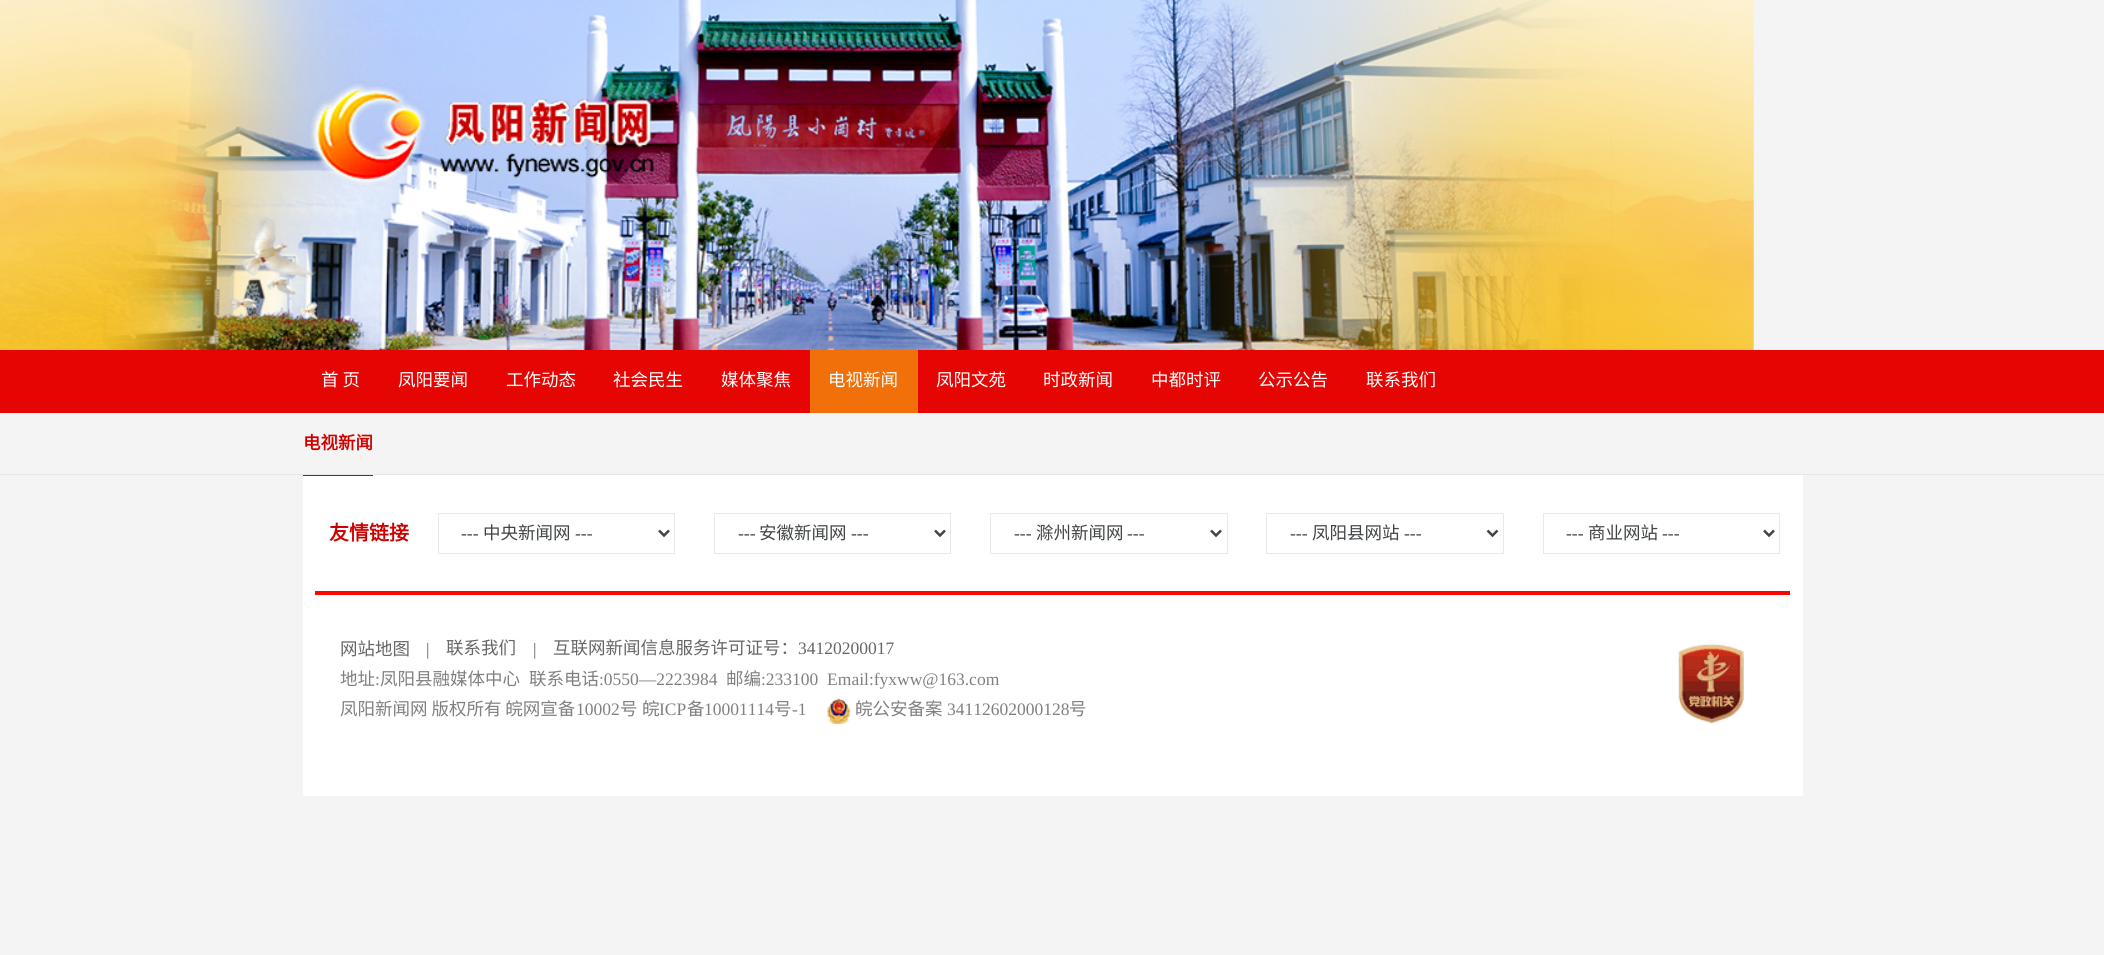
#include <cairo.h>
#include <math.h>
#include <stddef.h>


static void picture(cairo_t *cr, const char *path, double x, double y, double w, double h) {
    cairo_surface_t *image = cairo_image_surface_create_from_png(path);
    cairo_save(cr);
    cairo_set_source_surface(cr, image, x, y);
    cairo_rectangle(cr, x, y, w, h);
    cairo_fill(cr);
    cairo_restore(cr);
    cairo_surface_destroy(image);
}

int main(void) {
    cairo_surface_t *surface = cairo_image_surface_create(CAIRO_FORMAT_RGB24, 2104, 955);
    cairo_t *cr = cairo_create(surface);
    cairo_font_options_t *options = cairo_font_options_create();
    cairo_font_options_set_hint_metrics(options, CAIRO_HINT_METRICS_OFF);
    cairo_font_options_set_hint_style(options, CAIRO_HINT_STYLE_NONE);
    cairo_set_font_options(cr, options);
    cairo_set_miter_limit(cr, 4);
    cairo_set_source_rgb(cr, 0.957, 0.957, 0.957);
    cairo_paint(cr);
    picture(cr, "img1.png", 0, 0, 1754, 350);
    picture(cr, "img2.png", 310, 81, 344, 106);
    cairo_set_source_rgb(cr, 0.898, 0.027, 0.012);
    cairo_rectangle(cr, 0, 350, 2104, 63);
    cairo_fill(cr);
    cairo_select_font_face(cr, "Noto Sans CJK SC", CAIRO_FONT_SLANT_NORMAL, CAIRO_FONT_WEIGHT_NORMAL);
    cairo_set_font_size(cr, 17.5);
    cairo_set_source_rgb(cr, 1, 1, 1);
    cairo_move_to(cr, 321, 386);
    cairo_show_text(cr, "首 页");
    cairo_move_to(cr, 398, 386);
    cairo_show_text(cr, "凤阳要闻");
    cairo_move_to(cr, 506, 386);
    cairo_show_text(cr, "工作动态");
    cairo_move_to(cr, 613, 386);
    cairo_show_text(cr, "社会民生");
    cairo_move_to(cr, 721, 386);
    cairo_show_text(cr, "媒体聚焦");
    cairo_set_source_rgb(cr, 0.945, 0.439, 0.039);
    cairo_rectangle(cr, 810, 350, 108, 63);
    cairo_fill(cr);
    cairo_set_source_rgb(cr, 1, 1, 1);
    cairo_move_to(cr, 828, 386);
    cairo_show_text(cr, "电视新闻");
    cairo_move_to(cr, 936, 386);
    cairo_show_text(cr, "凤阳文苑");
    cairo_move_to(cr, 1043, 386);
    cairo_show_text(cr, "时政新闻");
    cairo_move_to(cr, 1151, 386);
    cairo_show_text(cr, "中都时评");
    cairo_move_to(cr, 1258, 386);
    cairo_show_text(cr, "公示公告");
    cairo_move_to(cr, 1366, 386);
    cairo_show_text(cr, "联系我们");
    cairo_set_source_rgb(cr, 0.906, 0.906, 0.906);
    cairo_rectangle(cr, 0, 474, 2104, 1);
    cairo_fill(cr);
    cairo_set_source_rgb(cr, 1, 1, 1);
    cairo_rectangle(cr, 303, 475, 1500, 321);
    cairo_fill(cr);
    cairo_set_source_rgb(cr, 0.827, 0, 0);
    cairo_rectangle(cr, 303, 475, 70, 1);
    cairo_fill(cr);
    cairo_select_font_face(cr, "Noto Sans CJK SC", CAIRO_FONT_SLANT_NORMAL, CAIRO_FONT_WEIGHT_BOLD);
    cairo_move_to(cr, 303, 449);
    cairo_show_text(cr, "电视新闻");
    cairo_set_font_size(cr, 20);
    cairo_set_source_rgb(cr, 0.8, 0, 0);
    cairo_move_to(cr, 329, 540);
    cairo_show_text(cr, "友情链接");
    cairo_rectangle(cr, 438.5, 513.5, 236, 40);
    cairo_set_source_rgb(cr, 0.914, 0.914, 0.914);
    cairo_set_line_width(cr, 1);
    cairo_stroke(cr);
    cairo_new_path(cr);
    cairo_move_to(cr, 659, 530.5);
    cairo_line_to(cr, 664, 535.5);
    cairo_line_to(cr, 669, 530.5);
    cairo_set_source_rgb(cr, 0.255, 0.267, 0.275);
    cairo_set_line_width(cr, 2.5);
    cairo_stroke(cr);
    cairo_select_font_face(cr, "Liberation Serif", CAIRO_FONT_SLANT_NORMAL, CAIRO_FONT_WEIGHT_NORMAL);
    cairo_set_font_size(cr, 17.5);
    cairo_move_to(cr, 461, 539);
    cairo_show_text(cr, "---");
    cairo_select_font_face(cr, "Noto Sans CJK SC", CAIRO_FONT_SLANT_NORMAL, CAIRO_FONT_WEIGHT_NORMAL);
    cairo_move_to(cr, 483, 539);
    cairo_show_text(cr, "中央新闻网");
    cairo_select_font_face(cr, "Liberation Serif", CAIRO_FONT_SLANT_NORMAL, CAIRO_FONT_WEIGHT_NORMAL);
    cairo_move_to(cr, 575, 539);
    cairo_show_text(cr, "---");
    cairo_rectangle(cr, 714.5, 513.5, 236, 40);
    cairo_set_source_rgb(cr, 0.914, 0.914, 0.914);
    cairo_set_line_width(cr, 1);
    cairo_stroke(cr);
    cairo_new_path(cr);
    cairo_move_to(cr, 935, 530.5);
    cairo_line_to(cr, 940, 535.5);
    cairo_line_to(cr, 945, 530.5);
    cairo_set_source_rgb(cr, 0.255, 0.267, 0.275);
    cairo_set_line_width(cr, 2.5);
    cairo_stroke(cr);
    cairo_move_to(cr, 738, 539);
    cairo_show_text(cr, "---");
    cairo_select_font_face(cr, "Noto Sans CJK SC", CAIRO_FONT_SLANT_NORMAL, CAIRO_FONT_WEIGHT_NORMAL);
    cairo_move_to(cr, 759, 539);
    cairo_show_text(cr, "安徽新闻网");
    cairo_select_font_face(cr, "Liberation Serif", CAIRO_FONT_SLANT_NORMAL, CAIRO_FONT_WEIGHT_NORMAL);
    cairo_move_to(cr, 851, 539);
    cairo_show_text(cr, "---");
    cairo_rectangle(cr, 990.5, 513.5, 237, 40);
    cairo_set_source_rgb(cr, 0.914, 0.914, 0.914);
    cairo_set_line_width(cr, 1);
    cairo_stroke(cr);
    cairo_new_path(cr);
    cairo_move_to(cr, 1211, 530.5);
    cairo_line_to(cr, 1216, 535.5);
    cairo_line_to(cr, 1221, 530.5);
    cairo_set_source_rgb(cr, 0.255, 0.267, 0.275);
    cairo_set_line_width(cr, 2.5);
    cairo_stroke(cr);
    cairo_move_to(cr, 1014, 539);
    cairo_show_text(cr, "---");
    cairo_select_font_face(cr, "Noto Sans CJK SC", CAIRO_FONT_SLANT_NORMAL, CAIRO_FONT_WEIGHT_NORMAL);
    cairo_move_to(cr, 1036, 539);
    cairo_show_text(cr, "滁州新闻网");
    cairo_select_font_face(cr, "Liberation Serif", CAIRO_FONT_SLANT_NORMAL, CAIRO_FONT_WEIGHT_NORMAL);
    cairo_move_to(cr, 1127, 539);
    cairo_show_text(cr, "---");
    cairo_rectangle(cr, 1266.5, 513.5, 237, 40);
    cairo_set_source_rgb(cr, 0.914, 0.914, 0.914);
    cairo_set_line_width(cr, 1);
    cairo_stroke(cr);
    cairo_new_path(cr);
    cairo_move_to(cr, 1487.5, 530.5);
    cairo_line_to(cr, 1492.5, 535.5);
    cairo_line_to(cr, 1497.5, 530.5);
    cairo_set_source_rgb(cr, 0.255, 0.267, 0.275);
    cairo_set_line_width(cr, 2.5);
    cairo_stroke(cr);
    cairo_move_to(cr, 1290, 539);
    cairo_show_text(cr, "---");
    cairo_select_font_face(cr, "Noto Sans CJK SC", CAIRO_FONT_SLANT_NORMAL, CAIRO_FONT_WEIGHT_NORMAL);
    cairo_move_to(cr, 1312, 539);
    cairo_show_text(cr, "凤阳县网站");
    cairo_select_font_face(cr, "Liberation Serif", CAIRO_FONT_SLANT_NORMAL, CAIRO_FONT_WEIGHT_NORMAL);
    cairo_move_to(cr, 1404, 539);
    cairo_show_text(cr, "---");
    cairo_rectangle(cr, 1543.5, 513.5, 236, 40);
    cairo_set_source_rgb(cr, 0.914, 0.914, 0.914);
    cairo_set_line_width(cr, 1);
    cairo_stroke(cr);
    cairo_new_path(cr);
    cairo_move_to(cr, 1764, 530.5);
    cairo_line_to(cr, 1769, 535.5);
    cairo_line_to(cr, 1774, 530.5);
    cairo_set_source_rgb(cr, 0.255, 0.267, 0.275);
    cairo_set_line_width(cr, 2.5);
    cairo_stroke(cr);
    cairo_move_to(cr, 1566, 539);
    cairo_show_text(cr, "---");
    cairo_select_font_face(cr, "Noto Sans CJK SC", CAIRO_FONT_SLANT_NORMAL, CAIRO_FONT_WEIGHT_NORMAL);
    cairo_move_to(cr, 1588, 539);
    cairo_show_text(cr, "商业网站");
    cairo_select_font_face(cr, "Liberation Serif", CAIRO_FONT_SLANT_NORMAL, CAIRO_FONT_WEIGHT_NORMAL);
    cairo_move_to(cr, 1662, 539);
    cairo_show_text(cr, "---");
    cairo_set_source_rgb(cr, 1, 0.02, 0);
    cairo_rectangle(cr, 315, 591, 1475, 4);
    cairo_fill(cr);
    cairo_select_font_face(cr, "Noto Sans CJK SC", CAIRO_FONT_SLANT_NORMAL, CAIRO_FONT_WEIGHT_NORMAL);
    cairo_set_source_rgb(cr, 0.4, 0.4, 0.4);
    cairo_move_to(cr, 340, 655);
    cairo_show_text(cr, "网站地图");
    cairo_select_font_face(cr, "Liberation Serif", CAIRO_FONT_SLANT_NORMAL, CAIRO_FONT_WEIGHT_NORMAL);
    cairo_move_to(cr, 426, 655);
    cairo_show_text(cr, "|");
    cairo_select_font_face(cr, "Noto Sans CJK SC", CAIRO_FONT_SLANT_NORMAL, CAIRO_FONT_WEIGHT_NORMAL);
    cairo_move_to(cr, 446, 654);
    cairo_show_text(cr, "联系我们");
    cairo_select_font_face(cr, "Liberation Serif", CAIRO_FONT_SLANT_NORMAL, CAIRO_FONT_WEIGHT_NORMAL);
    cairo_move_to(cr, 533, 655);
    cairo_show_text(cr, "|");
    cairo_select_font_face(cr, "Noto Sans CJK SC", CAIRO_FONT_SLANT_NORMAL, CAIRO_FONT_WEIGHT_NORMAL);
    cairo_move_to(cr, 553, 654);
    cairo_show_text(cr, "互联网新闻信息服务许可证号：");
    cairo_select_font_face(cr, "Liberation Serif", CAIRO_FONT_SLANT_NORMAL, CAIRO_FONT_WEIGHT_NORMAL);
    cairo_move_to(cr, 798, 654);
    cairo_show_text(cr, "34120200017");
    cairo_select_font_face(cr, "Noto Sans CJK SC", CAIRO_FONT_SLANT_NORMAL, CAIRO_FONT_WEIGHT_NORMAL);
    cairo_set_source_rgb(cr, 0.502, 0.502, 0.502);
    cairo_move_to(cr, 340, 685);
    cairo_show_text(cr, "地址");
    cairo_select_font_face(cr, "Liberation Serif", CAIRO_FONT_SLANT_NORMAL, CAIRO_FONT_WEIGHT_NORMAL);
    cairo_move_to(cr, 375, 685);
    cairo_show_text(cr, ":");
    cairo_select_font_face(cr, "Noto Sans CJK SC", CAIRO_FONT_SLANT_NORMAL, CAIRO_FONT_WEIGHT_NORMAL);
    cairo_move_to(cr, 380, 685);
    cairo_show_text(cr, "凤阳县融媒体中心");
    cairo_move_to(cr, 529, 685);
    cairo_show_text(cr, "联系电话");
    cairo_select_font_face(cr, "Liberation Serif", CAIRO_FONT_SLANT_NORMAL, CAIRO_FONT_WEIGHT_NORMAL);
    cairo_move_to(cr, 599, 685);
    cairo_show_text(cr, ":0550—2223984");
    cairo_select_font_face(cr, "Noto Sans CJK SC", CAIRO_FONT_SLANT_NORMAL, CAIRO_FONT_WEIGHT_NORMAL);
    cairo_move_to(cr, 726, 685);
    cairo_show_text(cr, "邮编");
    cairo_select_font_face(cr, "Liberation Serif", CAIRO_FONT_SLANT_NORMAL, CAIRO_FONT_WEIGHT_NORMAL);
    cairo_move_to(cr, 761, 685);
    cairo_show_text(cr, ":233100  Email:fyxww@163.com");
    cairo_select_font_face(cr, "Noto Sans CJK SC", CAIRO_FONT_SLANT_NORMAL, CAIRO_FONT_WEIGHT_NORMAL);
    cairo_move_to(cr, 340, 715);
    cairo_show_text(cr, "凤阳新闻网 版权所有 皖网宣备");
    cairo_select_font_face(cr, "Liberation Serif", CAIRO_FONT_SLANT_NORMAL, CAIRO_FONT_WEIGHT_NORMAL);
    cairo_move_to(cr, 576, 715);
    cairo_show_text(cr, "10002");
    cairo_select_font_face(cr, "Noto Sans CJK SC", CAIRO_FONT_SLANT_NORMAL, CAIRO_FONT_WEIGHT_NORMAL);
    cairo_move_to(cr, 620, 715);
    cairo_show_text(cr, "号");
    cairo_move_to(cr, 642, 715);
    cairo_show_text(cr, "皖");
    cairo_select_font_face(cr, "Liberation Serif", CAIRO_FONT_SLANT_NORMAL, CAIRO_FONT_WEIGHT_NORMAL);
    cairo_move_to(cr, 659, 715);
    cairo_show_text(cr, "ICP");
    cairo_select_font_face(cr, "Noto Sans CJK SC", CAIRO_FONT_SLANT_NORMAL, CAIRO_FONT_WEIGHT_NORMAL);
    cairo_move_to(cr, 687, 715);
    cairo_show_text(cr, "备");
    cairo_select_font_face(cr, "Liberation Serif", CAIRO_FONT_SLANT_NORMAL, CAIRO_FONT_WEIGHT_NORMAL);
    cairo_move_to(cr, 704, 715);
    cairo_show_text(cr, "10001114");
    cairo_select_font_face(cr, "Noto Sans CJK SC", CAIRO_FONT_SLANT_NORMAL, CAIRO_FONT_WEIGHT_NORMAL);
    cairo_move_to(cr, 774, 715);
    cairo_show_text(cr, "号");
    cairo_select_font_face(cr, "Liberation Serif", CAIRO_FONT_SLANT_NORMAL, CAIRO_FONT_WEIGHT_NORMAL);
    cairo_move_to(cr, 792, 715);
    cairo_show_text(cr, "-1");
    picture(cr, "img3.png", 827, 698, 23, 26);
    cairo_select_font_face(cr, "Noto Sans CJK SC", CAIRO_FONT_SLANT_NORMAL, CAIRO_FONT_WEIGHT_NORMAL);
    cairo_move_to(cr, 855, 715);
    cairo_show_text(cr, "皖公安备案");
    cairo_select_font_face(cr, "Liberation Serif", CAIRO_FONT_SLANT_NORMAL, CAIRO_FONT_WEIGHT_NORMAL);
    cairo_move_to(cr, 947, 715);
    cairo_show_text(cr, "34112602000128");
    cairo_select_font_face(cr, "Noto Sans CJK SC", CAIRO_FONT_SLANT_NORMAL, CAIRO_FONT_WEIGHT_NORMAL);
    cairo_move_to(cr, 1069, 715);
    cairo_show_text(cr, "号");
    picture(cr, "img4.png", 1678, 643, 66, 81);
    cairo_surface_write_to_png(surface, "page.png");
    cairo_font_options_destroy(options);
    cairo_destroy(cr);
    cairo_surface_destroy(surface);
    return 0;
}
